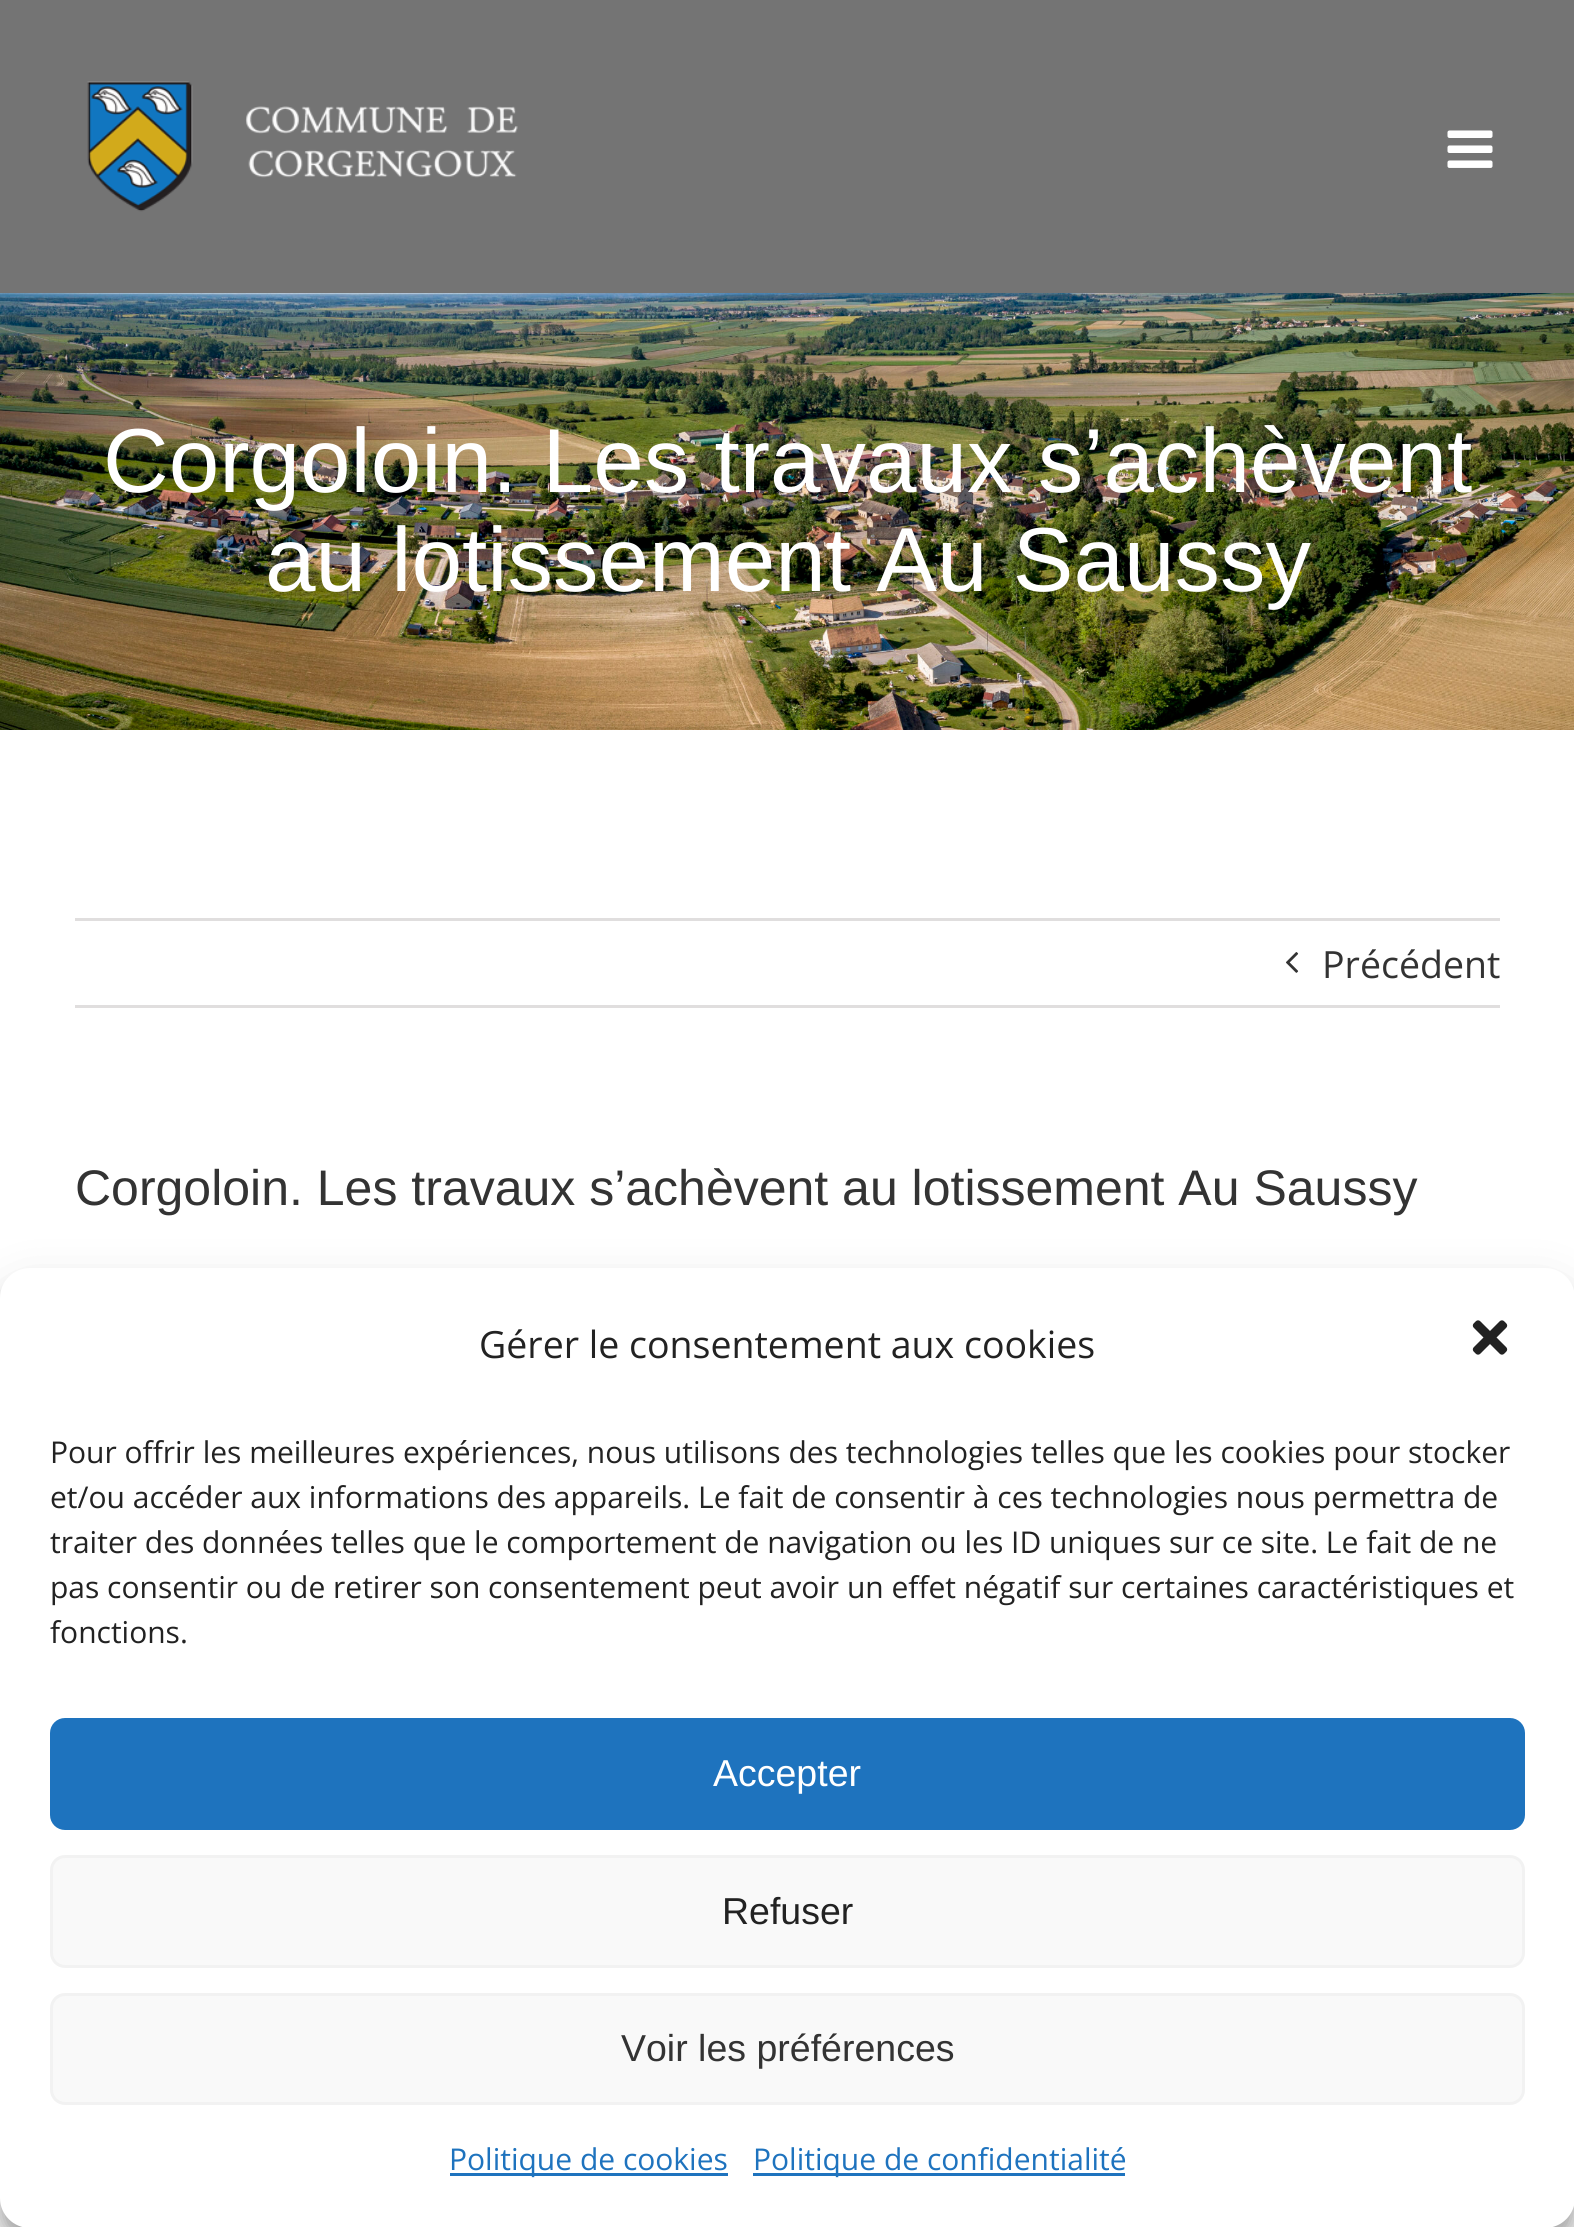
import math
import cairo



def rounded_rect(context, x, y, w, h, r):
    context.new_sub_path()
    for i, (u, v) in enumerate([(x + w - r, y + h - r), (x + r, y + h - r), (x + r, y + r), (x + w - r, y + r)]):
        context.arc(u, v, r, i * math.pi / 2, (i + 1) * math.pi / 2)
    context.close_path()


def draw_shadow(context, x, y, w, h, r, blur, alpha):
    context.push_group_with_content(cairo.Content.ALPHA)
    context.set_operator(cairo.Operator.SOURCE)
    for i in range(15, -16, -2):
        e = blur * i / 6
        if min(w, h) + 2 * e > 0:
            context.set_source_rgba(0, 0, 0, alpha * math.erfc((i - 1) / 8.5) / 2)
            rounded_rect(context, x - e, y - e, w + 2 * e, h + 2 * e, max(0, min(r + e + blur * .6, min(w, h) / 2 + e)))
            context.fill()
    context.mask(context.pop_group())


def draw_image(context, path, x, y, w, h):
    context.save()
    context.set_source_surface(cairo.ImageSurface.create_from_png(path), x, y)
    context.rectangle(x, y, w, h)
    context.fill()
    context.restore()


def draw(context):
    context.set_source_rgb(1, 1, 1)
    context.paint()
    context.set_source_rgb(116 / 255, 116 / 255, 116 / 255)
    context.rectangle(0, 0, 1574, 293)
    context.fill()
    draw_image(context, "images/1.png", 87, 81, 431, 131)
    draw_image(context, "images/2.png", 1447, 130, 46, 38)
    draw_image(context, "images/3.png", 0, 293, 1574, 437)
    context.set_source_rgb(224 / 255, 222 / 255, 222 / 255)
    context.rectangle(75, 918, 1425, 3)
    context.fill()
    context.rectangle(75, 1005, 1425, 3)
    context.fill()
    draw_image(context, "images/4.png", 1286, 952, 13, 21)
    context.set_source_rgb(0, 0, 0)
    draw_shadow(context, 0, 1283, 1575, 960, 30, 7.5, 0.23)
    draw_shadow(context, 0, 1293, 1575, 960, 30, 25, 0.19)
    context.set_source_rgb(1, 1, 1)
    rounded_rect(context, 0, 1268, 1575, 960, 30)
    context.fill()
    draw_image(context, "images/5.png", 1472, 1320, 36, 35)
    context.set_source_rgb(30 / 255, 115 / 255, 190 / 255)
    rounded_rect(context, 51.5, 1719.5, 1472, 109, 13.5)
    context.fill_preserve()
    context.set_line_width(3)
    context.stroke()
    context.set_source_rgb(249 / 255, 249 / 255, 249 / 255)
    rounded_rect(context, 51.5, 1856.5, 1472, 110, 13.5)
    context.fill_preserve()
    context.set_source_rgb(242 / 255, 242 / 255, 242 / 255)
    context.stroke()
    context.set_source_rgb(249 / 255, 249 / 255, 249 / 255)
    rounded_rect(context, 51.5, 1994.5, 1472, 109, 13.5)
    context.fill_preserve()
    context.set_source_rgb(242 / 255, 242 / 255, 242 / 255)
    context.stroke()
    context.set_source_rgb(30 / 255, 115 / 255, 190 / 255)
    context.rectangle(450, 2173, 278, 3)
    context.fill()
    context.rectangle(753, 2173, 372, 3)
    context.fill()
    context.select_font_face("Liberation Sans")
    context.set_font_size(90.9)
    context.set_source_rgb(1, 1, 1)
    context.move_to(103, 492)
    context.show_text("Corgoloin. Les travaux s’achèvent")
    context.move_to(265, 591)
    context.show_text("au lotissement Au Saussy")
    context.select_font_face("Open Sans")
    context.set_font_size(37.5)
    context.set_source_rgb(51 / 255, 51 / 255, 51 / 255)
    context.move_to(1322, 978)
    context.show_text("Précédent")
    context.select_font_face("Liberation Sans")
    context.set_font_size(50)
    context.move_to(75, 1205)
    context.show_text("Corgoloin. Les travaux s’achèvent au lotissement Au Saussy")
    context.select_font_face("Open Sans")
    context.set_font_size(37.5)
    context.set_source_rgb(34 / 255, 34 / 255, 34 / 255)
    context.move_to(479, 1358)
    context.show_text("Gérer le consentement aux cookies")
    context.set_font_size(30)
    context.move_to(50, 1463)
    context.show_text("Pour offrir les meilleures expériences, nous utilisons des technologies telles que les cookies pour stocker")
    context.move_to(50, 1508)
    context.show_text("et/ou accéder aux informations des appareils. Le fait de consentir à ces technologies nous permettra de")
    context.move_to(50, 1553)
    context.show_text("traiter des données telles que le comportement de navigation ou les ID uniques sur ce site. Le fait de ne")
    context.move_to(50, 1598)
    context.show_text("pas consentir ou de retirer son consentement peut avoir un effet négatif sur certaines caractéristiques et")
    context.move_to(50, 1643)
    context.show_text("fonctions.")
    context.select_font_face("Liberation Sans")
    context.set_font_size(37.5)
    context.set_source_rgb(1, 1, 1)
    context.move_to(713, 1786)
    context.show_text("Accepter")
    context.set_source_rgb(34 / 255, 34 / 255, 34 / 255)
    context.move_to(722, 1924)
    context.show_text("Refuser")
    context.set_source_rgb(51 / 255, 51 / 255, 51 / 255)
    context.move_to(621, 2061)
    context.show_text("Voir les préférences")
    context.select_font_face("Open Sans")
    context.set_font_size(30)
    context.set_source_rgb(30 / 255, 115 / 255, 190 / 255)
    context.move_to(449, 2170)
    context.show_text("Politique de cookies")
    context.move_to(753, 2170)
    context.show_text("Politique de confidentialité")


surface = cairo.ImageSurface(cairo.Format.RGB24, 1574, 2227)
context = cairo.Context(surface)
options = cairo.FontOptions()
options.set_hint_metrics(cairo.HintMetrics.OFF)
options.set_hint_style(cairo.HintStyle.NONE)
context.set_font_options(options)
context.set_miter_limit(4)
draw(context)
surface.write_to_png("out.png")
